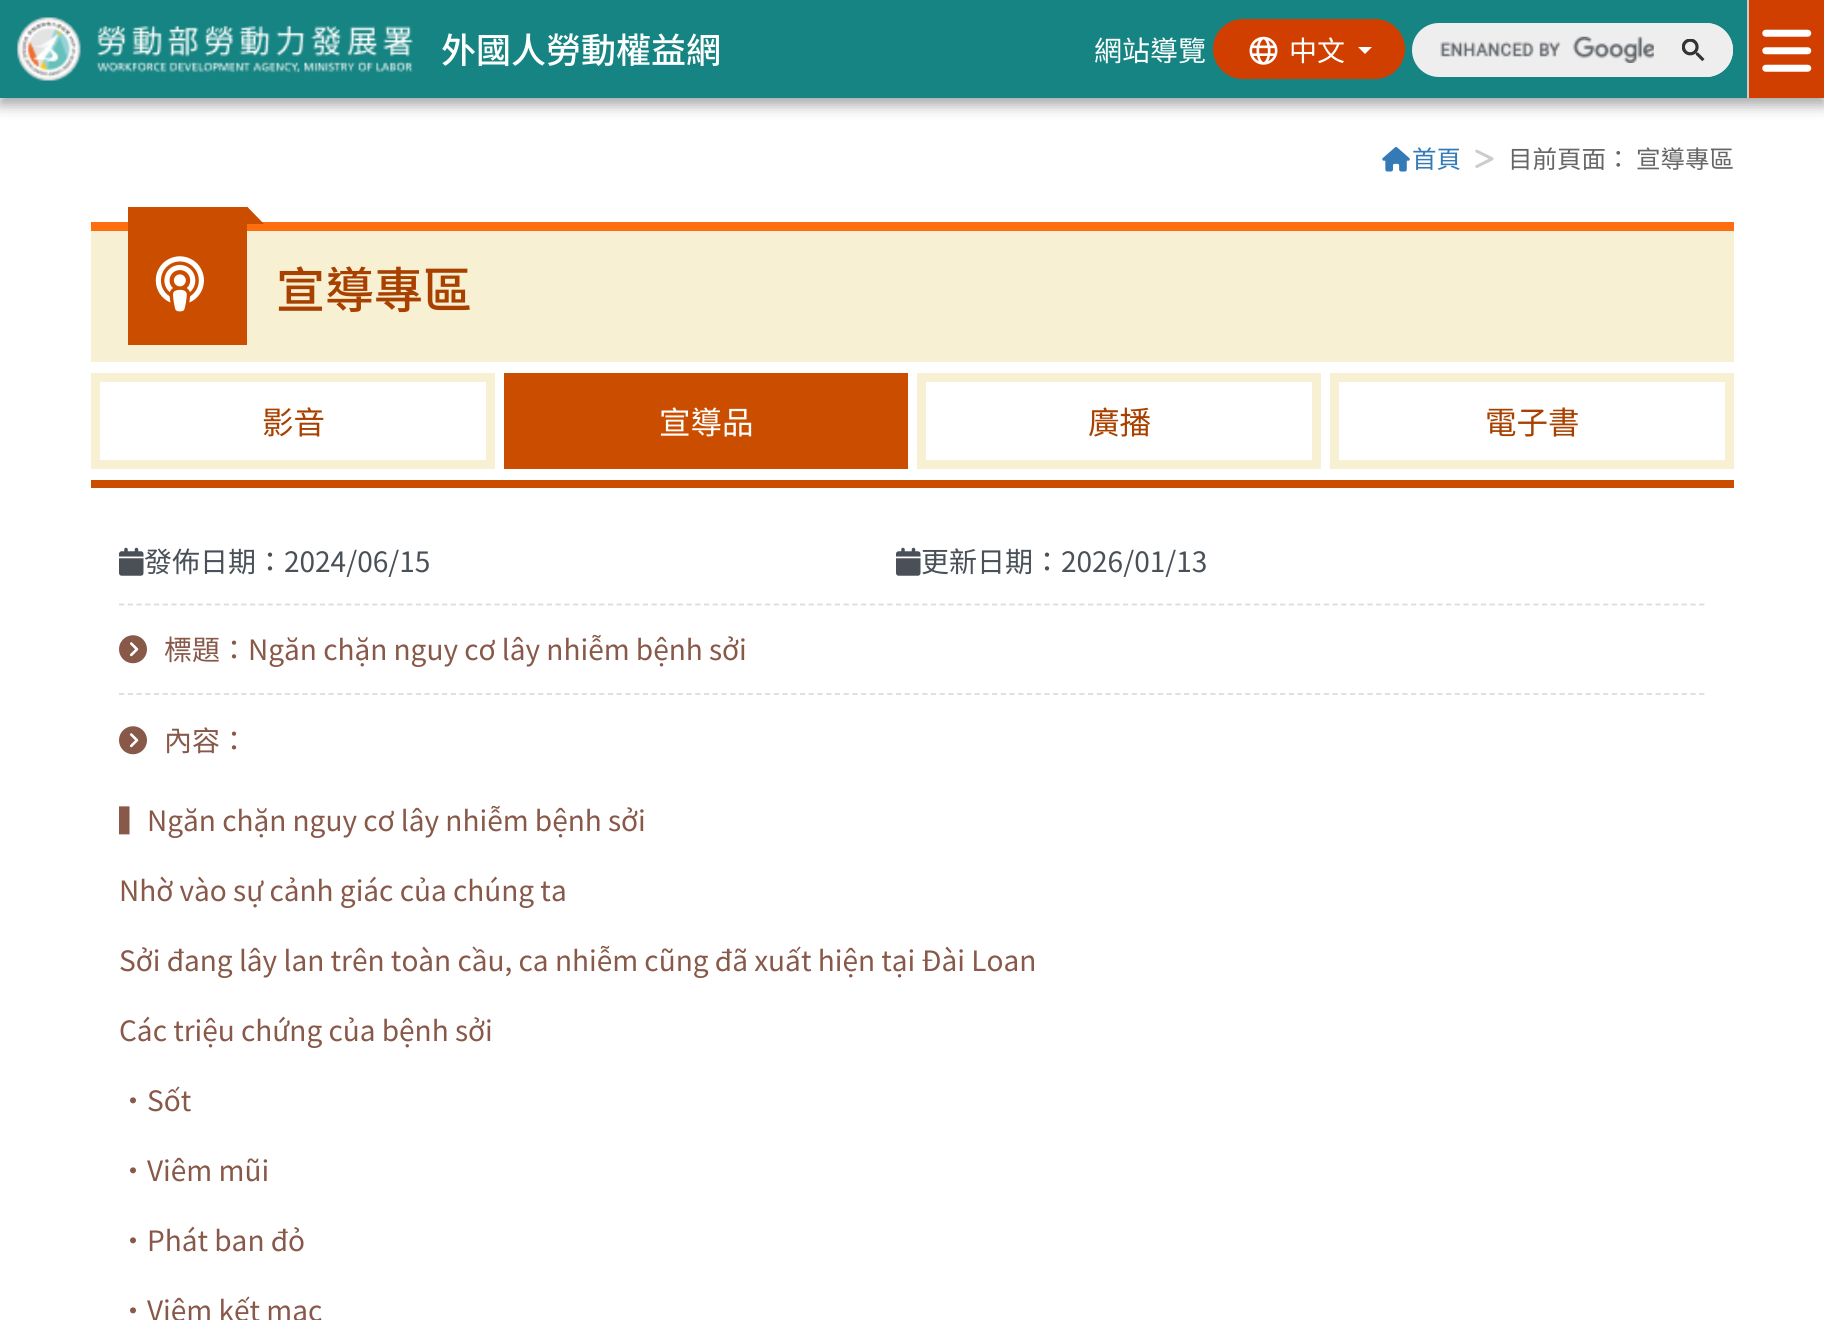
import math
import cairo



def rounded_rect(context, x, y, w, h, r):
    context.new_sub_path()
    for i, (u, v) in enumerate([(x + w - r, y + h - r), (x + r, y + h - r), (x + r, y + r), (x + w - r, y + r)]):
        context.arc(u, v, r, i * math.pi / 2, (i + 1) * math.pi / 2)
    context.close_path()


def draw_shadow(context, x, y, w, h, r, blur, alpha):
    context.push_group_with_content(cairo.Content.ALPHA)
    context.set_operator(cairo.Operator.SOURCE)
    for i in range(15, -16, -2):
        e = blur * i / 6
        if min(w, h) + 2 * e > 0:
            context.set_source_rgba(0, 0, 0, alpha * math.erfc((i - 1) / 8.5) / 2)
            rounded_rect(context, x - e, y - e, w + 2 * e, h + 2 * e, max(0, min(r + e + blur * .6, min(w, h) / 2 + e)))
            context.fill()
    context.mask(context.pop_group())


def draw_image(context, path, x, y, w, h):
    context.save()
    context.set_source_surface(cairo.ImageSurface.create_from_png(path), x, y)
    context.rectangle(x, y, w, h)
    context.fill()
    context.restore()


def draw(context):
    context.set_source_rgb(1, 1, 1)
    context.paint()
    context.set_source_rgb(0, 0, 0)
    draw_shadow(context, 0, 7, 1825, 98, 0, 7, 0.35)
    context.set_source_rgb(21 / 255, 132 / 255, 130 / 255)
    context.rectangle(0, 0, 1747, 98)
    context.fill()
    draw_image(context, "images/1.png", 16, 17, 397, 64)
    context.set_source_rgb(209 / 255, 63 / 255, 0)
    rounded_rect(context, 1213, 19, 192, 60, 30)
    context.fill()
    draw_image(context, "images/2.png", 1249, 36, 29, 29)
    context.set_source_rgb(1, 1, 1)
    context.new_path()
    context.move_to(1358, 47)
    context.line_to(1372, 47)
    context.line_to(1365, 54)
    context.close_path()
    context.fill()
    context.set_source_rgb(238 / 255, 238 / 255, 238 / 255)
    rounded_rect(context, 1412, 23, 321, 54, 27)
    context.fill()
    draw_image(context, "images/3.png", 1440, 36, 214, 27)
    rounded_rect(context, 1655, 24, 77, 52, 26)
    context.fill_preserve()
    context.stroke()
    draw_image(context, "images/4.png", 1682, 39, 23, 22)
    context.set_source_rgb(209 / 255, 63 / 255, 0)
    context.rectangle(1749, 0, 75, 98)
    context.fill()
    context.set_source_rgb(204 / 255, 204 / 255, 204 / 255)
    context.rectangle(1747, 0, 2, 98)
    context.fill()
    draw_image(context, "images/5.png", 1762, 29, 50, 43)
    draw_image(context, "images/6.png", 1382, 147, 28, 25)
    draw_image(context, "images/7.png", 1475, 149, 19, 19)
    context.set_source_rgb(247 / 255, 240 / 255, 210 / 255)
    context.rectangle(91, 231, 1643, 131)
    context.fill()
    context.set_source_rgb(254 / 255, 110 / 255, 14 / 255)
    context.rectangle(91, 222, 1643, 9)
    context.fill()
    context.set_source_rgb(203 / 255, 78 / 255, 0)
    context.rectangle(128, 207, 119, 138)
    context.fill()
    context.new_path()
    context.move_to(264, 224)
    context.line_to(229, 224)
    context.line_to(247, 206.5)
    context.close_path()
    context.fill()
    draw_image(context, "images/8.png", 155, 256, 49, 56)
    context.rectangle(95.5, 377.5, 395, 87)
    context.set_source_rgb(247 / 255, 240 / 255, 210 / 255)
    context.set_line_width(9)
    context.stroke()
    context.set_source_rgb(203 / 255, 78 / 255, 0)
    context.rectangle(504, 373, 404, 96)
    context.fill()
    context.rectangle(921.5, 377.5, 395, 87)
    context.set_source_rgb(247 / 255, 240 / 255, 210 / 255)
    context.stroke()
    context.rectangle(1334.5, 377.5, 395, 87)
    context.stroke()
    context.set_source_rgb(203 / 255, 78 / 255, 0)
    context.rectangle(91, 480, 1643, 8)
    context.fill()
    context.new_path()
    context.move_to(119, 604.5)
    context.line_to(1706, 604.5)
    context.set_source_rgb(221 / 255, 221 / 255, 221 / 255)
    context.set_line_width(1.8)
    context.set_dash([5.25, 3.48])
    context.stroke()
    draw_image(context, "images/9.png", 119, 547, 25, 29)
    draw_image(context, "images/9.png", 896, 547, 25, 29)
    context.new_path()
    context.move_to(119, 694)
    context.line_to(1706, 694)
    context.stroke()
    draw_image(context, "images/10.png", 119, 635, 28, 29)
    draw_image(context, "images/10.png", 119, 726, 28, 29)
    context.select_font_face("Noto Sans TC Medium")
    context.set_font_size(35)
    context.set_source_rgb(1, 1, 1)
    context.move_to(441, 63)
    context.show_text("外國人勞動權益網")
    context.select_font_face("Noto Sans TC")
    context.set_font_size(28)
    context.move_to(1094, 61)
    context.show_text("網站導覽")
    context.move_to(1289, 61)
    context.show_text("中文")
    context.set_font_size(24.5)
    context.set_source_rgb(51 / 255, 122 / 255, 183 / 255)
    context.move_to(1412, 168)
    context.show_text("首頁")
    context.set_source_rgb(102 / 255, 102 / 255, 102 / 255)
    context.move_to(1508, 168)
    context.show_text("目前頁面： 宣導專區")
    context.select_font_face("Noto Sans TC Medium")
    context.set_font_size(49)
    context.set_source_rgb(168 / 255, 65 / 255, 0)
    context.move_to(276, 308)
    context.show_text("宣導專區")
    context.select_font_face("Noto Sans TC")
    context.set_font_size(31.5)
    context.move_to(262, 434)
    context.show_text("影音")
    context.set_source_rgb(1, 1, 1)
    context.move_to(659, 434)
    context.show_text("宣導品")
    context.set_source_rgb(168 / 255, 65 / 255, 0)
    context.move_to(1088, 434)
    context.show_text("廣播")
    context.move_to(1485, 434)
    context.show_text("電子書")
    context.set_font_size(28)
    context.set_source_rgb(73 / 255, 80 / 255, 87 / 255)
    context.move_to(144, 572)
    context.show_text("發佈日期：2024/06/15")
    context.move_to(921, 572)
    context.show_text("更新日期：2026/01/13")
    context.set_source_rgb(136 / 255, 88 / 255, 73 / 255)
    context.move_to(164, 660)
    context.show_text("標題：Ngăn chặn nguy cơ lây nhiễm bệnh sởi")
    context.move_to(164, 751)
    context.show_text("內容：")
    context.move_to(119, 831)
    context.show_text("▍Ngăn chặn nguy cơ lây nhiễm bệnh sởi")
    context.move_to(119, 901)
    context.show_text("Nhờ vào sự cảnh giác của chúng ta")
    context.move_to(119, 971)
    context.show_text("Sởi đang lây lan trên toàn cầu, ca nhiễm cũng đã xuất hiện tại Đài Loan")
    context.move_to(119, 1041)
    context.show_text("Các triệu chứng của bệnh sởi")
    context.move_to(119, 1111)
    context.show_text("•Sốt")
    context.move_to(119, 1181)
    context.show_text("•Viêm mũi")
    context.move_to(119, 1251)
    context.show_text("•Phát ban đỏ")
    context.move_to(119, 1321)
    context.show_text("•Viêm kết mạc")


surface = cairo.ImageSurface(cairo.Format.RGB24, 1824, 1320)
context = cairo.Context(surface)
options = cairo.FontOptions()
options.set_hint_metrics(cairo.HintMetrics.OFF)
options.set_hint_style(cairo.HintStyle.NONE)
context.set_font_options(options)
context.set_miter_limit(4)
draw(context)
surface.write_to_png("out.png")
